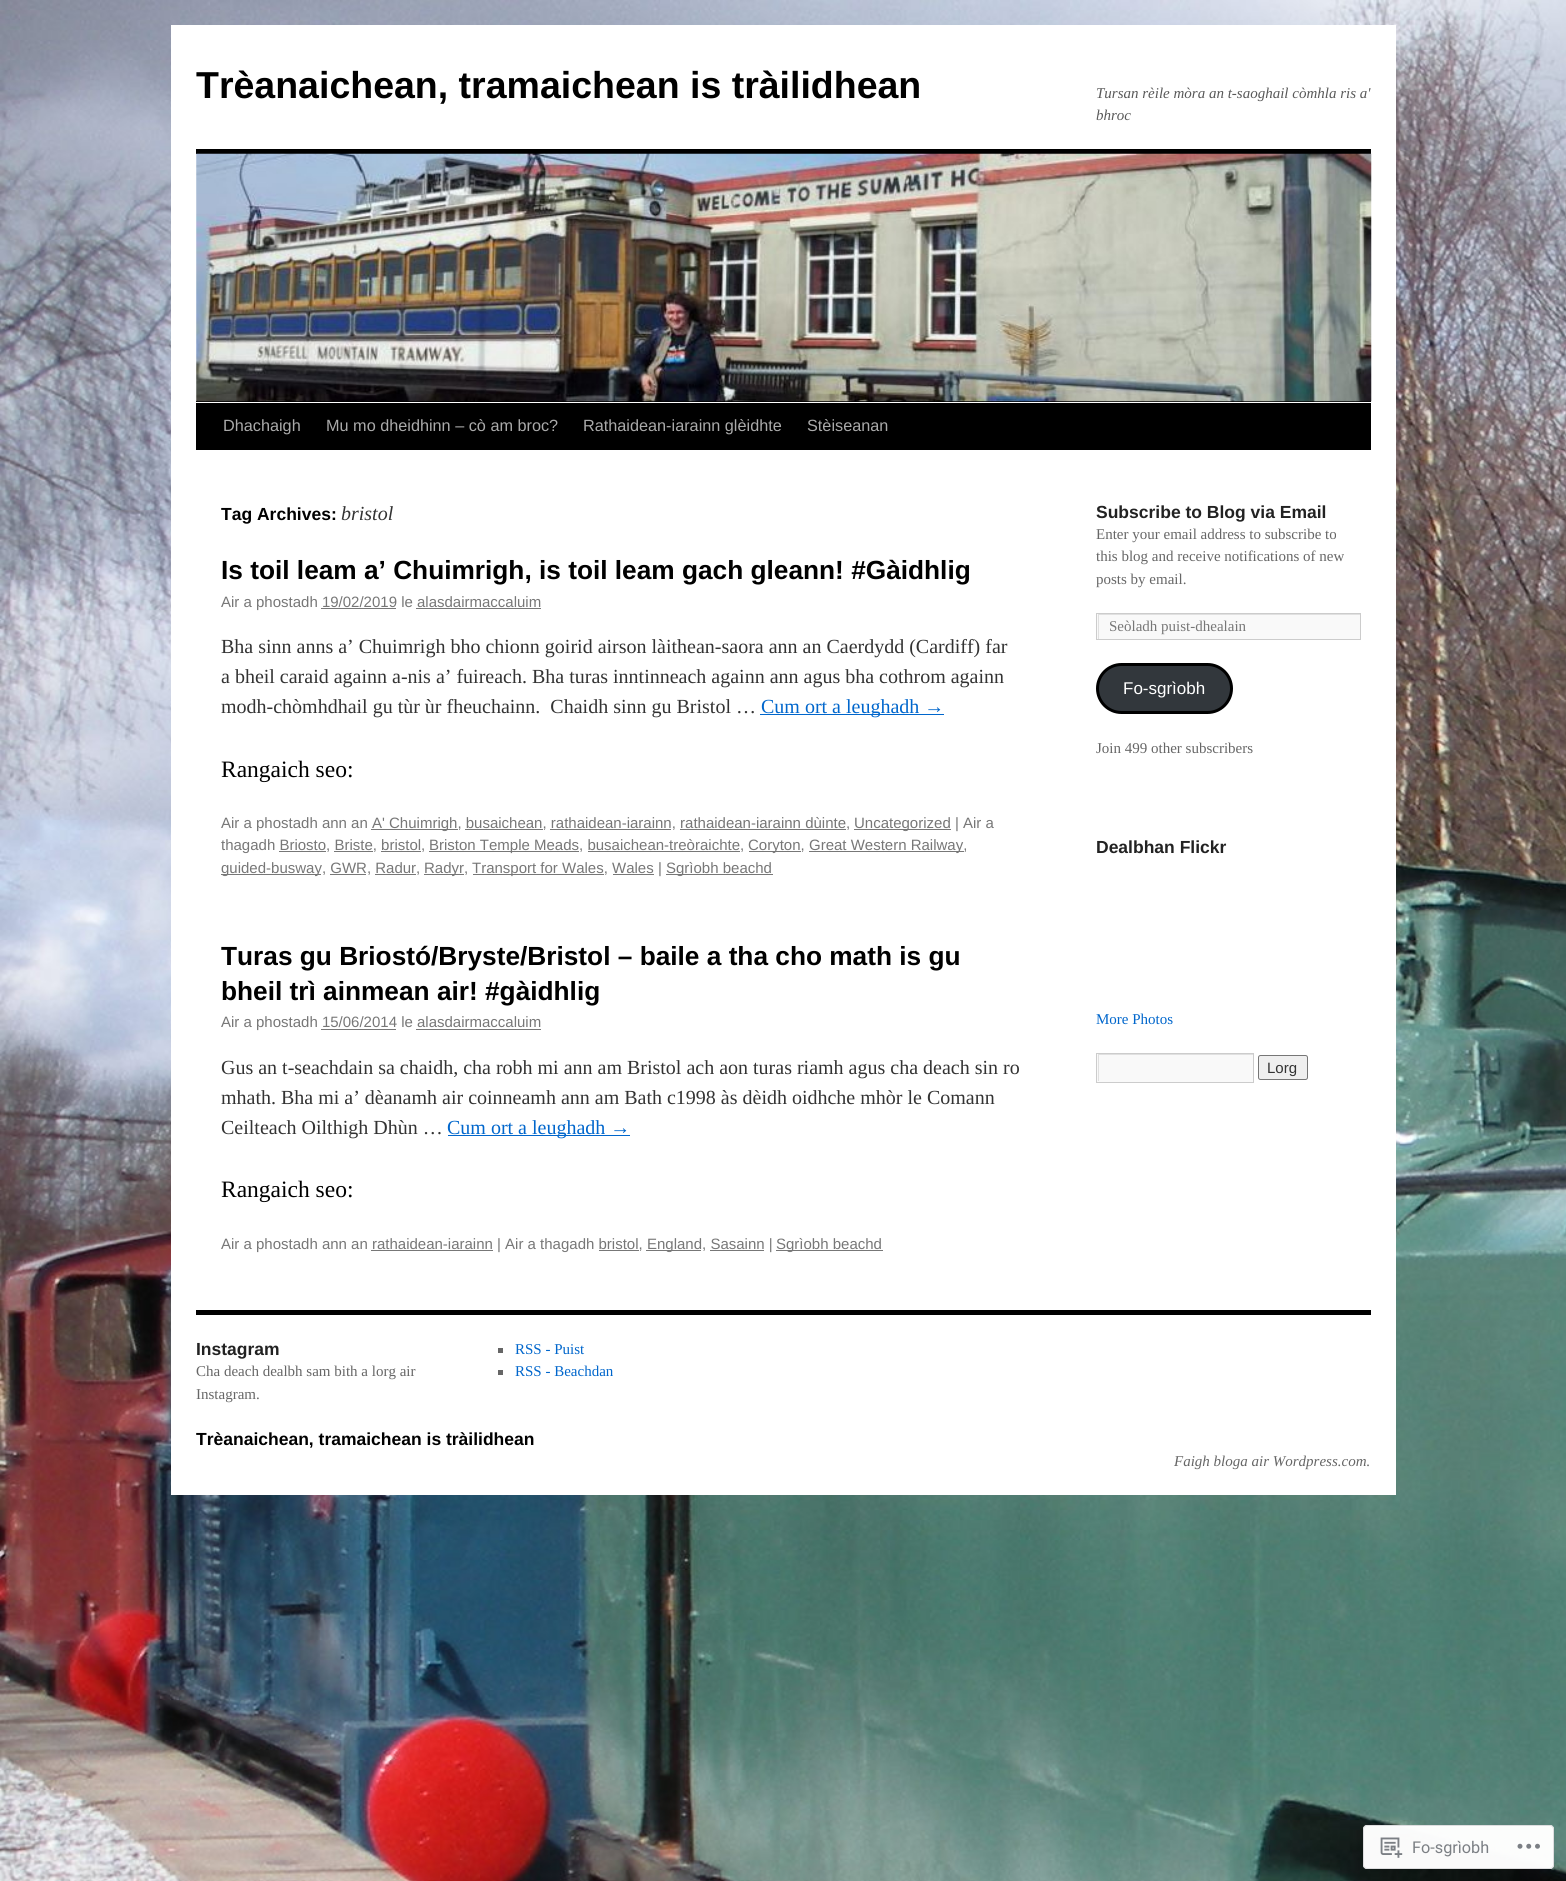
import math
import cairo



def rounded_rect(context, x, y, w, h, r):
    context.new_sub_path()
    for i, (u, v) in enumerate([(x + w - r, y + h - r), (x + r, y + h - r), (x + r, y + r), (x + w - r, y + r)]):
        context.arc(u, v, r, i * math.pi / 2, (i + 1) * math.pi / 2)
    context.close_path()


def draw_image(context, path, x, y, w, h):
    context.save()
    context.set_source_surface(cairo.ImageSurface.create_from_png(path), x, y)
    context.rectangle(x, y, w, h)
    context.fill()
    context.restore()


def draw(context):
    context.set_source_rgb(1, 1, 1)
    context.paint()
    draw_image(context, "images/1.png", 0, 0, 1566, 1881)
    context.set_source_rgb(1, 1, 1)
    context.rectangle(171, 25, 1225, 1470)
    context.fill()
    context.set_source_rgb(0, 0, 0)
    context.rectangle(196, 149, 1175, 5)
    context.fill()
    context.rectangle(196, 401, 1175, 1)
    context.fill()
    draw_image(context, "images/2.png", 196, 153, 1176, 249)
    context.rectangle(196, 403, 1175, 47)
    context.fill()
    context.set_source_rgb(119 / 255, 119 / 255, 119 / 255)
    context.rectangle(321, 608, 75, 1)
    context.fill()
    context.rectangle(416, 608, 125, 1)
    context.fill()
    context.set_source_rgb(0, 102 / 255, 204 / 255)
    context.rectangle(760, 714, 184, 1)
    context.fill()
    context.set_source_rgb(119 / 255, 119 / 255, 119 / 255)
    context.rectangle(371, 829, 87, 1)
    context.fill()
    context.rectangle(465, 829, 78, 1)
    context.fill()
    context.rectangle(550, 829, 121, 1)
    context.fill()
    context.rectangle(680, 829, 166, 1)
    context.fill()
    context.rectangle(854, 829, 97, 1)
    context.fill()
    context.rectangle(279, 851, 47, 1)
    context.fill()
    context.rectangle(334, 851, 39, 1)
    context.fill()
    context.rectangle(381, 851, 40, 1)
    context.fill()
    context.rectangle(429, 851, 150, 1)
    context.fill()
    context.rectangle(588, 851, 152, 1)
    context.fill()
    context.rectangle(749, 851, 52, 1)
    context.fill()
    context.rectangle(809, 851, 155, 1)
    context.fill()
    context.rectangle(221, 874, 100, 1)
    context.fill()
    context.rectangle(330, 874, 36, 1)
    context.fill()
    context.rectangle(375, 874, 41, 1)
    context.fill()
    context.rectangle(424, 874, 40, 1)
    context.fill()
    context.rectangle(473, 874, 131, 1)
    context.fill()
    context.rectangle(613, 874, 41, 1)
    context.fill()
    context.rectangle(666, 874, 107, 1)
    context.fill()
    context.rectangle(321, 1029, 75, 1)
    context.fill()
    context.rectangle(416, 1029, 125, 1)
    context.fill()
    context.set_source_rgb(0, 102 / 255, 204 / 255)
    context.rectangle(448, 1135, 182, 1)
    context.fill()
    context.set_source_rgb(119 / 255, 119 / 255, 119 / 255)
    context.rectangle(371, 1250, 122, 1)
    context.fill()
    context.rectangle(599, 1250, 40, 1)
    context.fill()
    context.rectangle(646, 1250, 55, 1)
    context.fill()
    context.rectangle(710, 1250, 54, 1)
    context.fill()
    context.rectangle(776, 1250, 107, 1)
    context.fill()
    context.set_source_rgb(249 / 255, 249 / 255, 249 / 255)
    context.rectangle(1097, 614, 263, 25)
    context.fill()
    context.save()
    context.rectangle(1098, 614, 262, 25)
    context.clip()
    context.set_source_rgb(224 / 255, 224 / 255, 224 / 255)
    context.set_fill_rule(cairo.FillRule.EVEN_ODD)
    context.new_path()
    context.move_to(974, 490)
    context.line_to(1484, 490)
    context.line_to(1484, 762)
    context.line_to(974, 762)
    context.close_path()
    context.move_to(1099, 615)
    context.line_to(1361, 615)
    context.line_to(1361, 640)
    context.line_to(1099, 640)
    context.close_path()
    context.fill()
    context.restore()
    context.rectangle(1096.5, 613.5, 264, 26)
    context.set_source_rgb(204 / 255, 204 / 255, 204 / 255)
    context.set_line_width(1)
    context.stroke()
    context.set_source_rgb(50 / 255, 55 / 255, 60 / 255)
    rounded_rect(context, 1097.5, 664.5, 134, 48, 24)
    context.fill_preserve()
    context.set_source_rgb(0, 0, 0)
    context.set_line_width(3)
    context.stroke()
    context.set_source_rgb(249 / 255, 249 / 255, 249 / 255)
    context.rectangle(1097, 1054, 156, 28)
    context.fill()
    context.save()
    context.rectangle(1098, 1054, 155, 27)
    context.clip()
    context.set_source_rgb(224 / 255, 224 / 255, 224 / 255)
    context.set_fill_rule(cairo.FillRule.EVEN_ODD)
    context.new_path()
    context.move_to(974, 930)
    context.line_to(1376, 930)
    context.line_to(1376, 1205)
    context.line_to(974, 1205)
    context.close_path()
    context.move_to(1099, 1055)
    context.line_to(1254, 1055)
    context.line_to(1254, 1082)
    context.line_to(1099, 1082)
    context.close_path()
    context.fill()
    context.restore()
    context.rectangle(1096.5, 1053.5, 157, 29)
    context.set_source_rgb(204 / 255, 204 / 255, 204 / 255)
    context.set_line_width(1)
    context.stroke()
    context.set_source_rgb(239 / 255, 239 / 255, 239 / 255)
    rounded_rect(context, 1258.5, 1055.5, 49, 24, 2)
    context.fill_preserve()
    context.set_source_rgb(118 / 255, 118 / 255, 118 / 255)
    context.stroke()
    context.set_source_rgb(0, 0, 0)
    context.rectangle(196, 1310, 1175, 5)
    context.fill()
    context.set_source_rgb(102 / 255, 102 / 255, 102 / 255)
    context.rectangle(498, 1348, 5, 5)
    context.fill()
    context.rectangle(498, 1370, 5, 5)
    context.fill()
    context.set_source_rgba(1, 1, 1, 0.98)
    rounded_rect(context, 1363, 1825, 191, 44, 4)
    context.fill()
    rounded_rect(context, 1363.5, 1825.5, 190, 43, 3.5)
    context.set_source_rgba(220 / 255, 220 / 255, 222 / 255, 0.98)
    context.stroke()
    draw_image(context, "images/3.png", 1380, 1837, 23, 21)
    draw_image(context, "images/4.png", 1517, 1843, 23, 6)
    context.select_font_face("Liberation Sans", cairo.FontSlant.NORMAL, cairo.FontWeight.BOLD)
    context.set_font_size(37.5)
    context.set_source_rgb(0, 0, 0)
    context.move_to(196, 98)
    context.show_text("Trèanaichean, tramaichean is tràilidhean")
    context.select_font_face("Liberation Serif", cairo.FontSlant.ITALIC)
    context.set_font_size(15)
    context.set_source_rgb(89 / 255, 89 / 255, 89 / 255)
    context.move_to(1096, 98)
    context.show_text("Tursan rèile mòra an t-saoghail còmhla ris a'")
    context.move_to(1096, 120)
    context.show_text("bhroc")
    context.select_font_face("Liberation Sans")
    context.set_font_size(16.25)
    context.set_source_rgb(170 / 255, 170 / 255, 170 / 255)
    context.move_to(223, 431)
    context.show_text("Dhachaigh")
    context.move_to(326, 431)
    context.show_text("Mu mo dheidhinn – cò am broc?")
    context.move_to(583, 431)
    context.show_text("Rathaidean-iarainn glèidhte")
    context.move_to(807, 431)
    context.show_text("Stèiseanan")
    context.select_font_face("Liberation Sans", cairo.FontSlant.NORMAL, cairo.FontWeight.BOLD)
    context.set_font_size(17.5)
    context.set_source_rgb(0, 0, 0)
    context.move_to(221, 520)
    context.show_text("Tag Archives:")
    context.select_font_face("Liberation Serif", cairo.FontSlant.ITALIC)
    context.set_font_size(20)
    context.set_source_rgb(51 / 255, 51 / 255, 51 / 255)
    context.move_to(341, 520)
    context.show_text("bristol")
    context.select_font_face("Liberation Sans", cairo.FontSlant.NORMAL, cairo.FontWeight.BOLD)
    context.set_font_size(26.25)
    context.set_source_rgb(0, 0, 0)
    context.move_to(221, 579)
    context.show_text("Is toil leam a’ Chuimrigh, is toil leam gach gleann! #Gàidhlig")
    context.select_font_face("Liberation Sans")
    context.set_font_size(15)
    context.set_source_rgb(119 / 255, 119 / 255, 119 / 255)
    context.move_to(221, 607)
    context.show_text("Air a phostadh 19/02/2019 le alasdairmaccaluim")
    context.select_font_face("Liberation Serif")
    context.set_font_size(20)
    context.set_source_rgb(51 / 255, 51 / 255, 51 / 255)
    context.move_to(221, 653)
    context.show_text("Bha sinn anns a’ Chuimrigh bho chionn goirid airson làithean-saora ann an Caerdydd (Cardiff) far")
    context.move_to(221, 683)
    context.show_text("a bheil caraid againn a-nis a’ fuireach. Bha turas inntinneach againn ann agus bha cothrom againn")
    context.move_to(221, 713)
    context.show_text("modh-chòmhdhail gu tùr ùr fheuchainn.  Chaidh sinn gu Bristol …")
    context.set_source_rgb(0, 102 / 255, 204 / 255)
    context.move_to(761, 713)
    context.show_text("Cum ort a leughadh →")
    context.set_font_size(23.5)
    context.set_source_rgb(0, 0, 0)
    context.move_to(221, 777)
    context.show_text("Rangaich seo:")
    context.select_font_face("Liberation Sans")
    context.set_font_size(15)
    context.set_source_rgb(119 / 255, 119 / 255, 119 / 255)
    context.move_to(221, 828)
    context.show_text("Air a phostadh ann an")
    context.move_to(372, 828)
    context.show_text("A' Chuimrigh, busaichean, rathaidean-iarainn, rathaidean-iarainn dùinte,")
    context.move_to(854, 828)
    context.show_text("Uncategorized | Air a")
    context.move_to(221, 850)
    context.show_text("thagadh Briosto, Briste, bristol,")
    context.move_to(429, 850)
    context.show_text("Briston Temple Meads, busaichean-treòraichte,")
    context.move_to(748, 850)
    context.show_text("Coryton,")
    context.move_to(809, 850)
    context.show_text("Great Western Railway,")
    context.move_to(221, 873)
    context.show_text("guided-busway, GWR, Radur,")
    context.move_to(424, 873)
    context.show_text("Radyr,")
    context.move_to(472, 873)
    context.show_text("Transport for Wales, Wales |")
    context.move_to(666, 873)
    context.show_text("Sgrìobh beachd")
    context.select_font_face("Liberation Sans", cairo.FontSlant.NORMAL, cairo.FontWeight.BOLD)
    context.set_font_size(26.25)
    context.set_source_rgb(0, 0, 0)
    context.move_to(221, 965)
    context.show_text("Turas gu Briostó/Bryste/Bristol – baile a tha cho math is gu")
    context.move_to(221, 1000)
    context.show_text("bheil trì ainmean air! #gàidhlig")
    context.select_font_face("Liberation Sans")
    context.set_font_size(15)
    context.set_source_rgb(119 / 255, 119 / 255, 119 / 255)
    context.move_to(221, 1027)
    context.show_text("Air a phostadh 15/06/2014 le alasdairmaccaluim")
    context.select_font_face("Liberation Serif")
    context.set_font_size(20)
    context.set_source_rgb(51 / 255, 51 / 255, 51 / 255)
    context.move_to(221, 1074)
    context.show_text("Gus an t-seachdain sa chaidh, cha robh mi ann am Bristol ach aon turas riamh agus cha deach sin ro")
    context.move_to(221, 1104)
    context.show_text("mhath. Bha mi a’ dèanamh air coinneamh ann am Bath c1998 às dèidh oidhche mhòr le Comann")
    context.move_to(221, 1134)
    context.show_text("Ceilteach Oilthigh Dhùn …")
    context.set_source_rgb(0, 102 / 255, 204 / 255)
    context.move_to(447, 1134)
    context.show_text("Cum ort a leughadh →")
    context.set_font_size(23.5)
    context.set_source_rgb(0, 0, 0)
    context.move_to(221, 1197)
    context.show_text("Rangaich seo:")
    context.select_font_face("Liberation Sans")
    context.set_font_size(15)
    context.set_source_rgb(119 / 255, 119 / 255, 119 / 255)
    context.move_to(221, 1249)
    context.show_text("Air a phostadh ann an rathaidean-iarainn | Air a thagadh bristol,")
    context.move_to(647, 1249)
    context.show_text("England, Sasainn |")
    context.move_to(776, 1249)
    context.show_text("Sgrìobh beachd")
    context.select_font_face("Liberation Sans", cairo.FontSlant.NORMAL, cairo.FontWeight.BOLD)
    context.set_font_size(17.5)
    context.set_source_rgb(34 / 255, 34 / 255, 34 / 255)
    context.move_to(1096, 518)
    context.show_text("Subscribe to Blog via Email")
    context.select_font_face("Liberation Serif")
    context.set_font_size(15)
    context.set_source_rgb(102 / 255, 102 / 255, 102 / 255)
    context.move_to(1096, 539)
    context.show_text("Enter your email address to subscribe to")
    context.move_to(1096, 561)
    context.show_text("this blog and receive notifications of new")
    context.move_to(1096, 584)
    context.show_text("posts by email.")
    context.set_source_rgb(119 / 255, 119 / 255, 119 / 255)
    context.move_to(1109, 631)
    context.show_text("Seòladh puist-dhealain")
    context.select_font_face("Liberation Sans")
    context.set_font_size(17)
    context.set_source_rgb(1, 1, 1)
    context.move_to(1123, 694)
    context.show_text("Fo-sgrìobh")
    context.select_font_face("Liberation Serif")
    context.set_font_size(15)
    context.set_source_rgb(102 / 255, 102 / 255, 102 / 255)
    context.move_to(1096, 753)
    context.show_text("Join 499 other subscribers")
    context.select_font_face("Liberation Sans", cairo.FontSlant.NORMAL, cairo.FontWeight.BOLD)
    context.set_font_size(17.5)
    context.set_source_rgb(34 / 255, 34 / 255, 34 / 255)
    context.move_to(1096, 853)
    context.show_text("Dealbhan Flickr")
    context.select_font_face("Liberation Serif")
    context.set_font_size(15)
    context.set_source_rgb(0, 102 / 255, 204 / 255)
    context.move_to(1096, 1024)
    context.show_text("More Photos")
    context.select_font_face("Liberation Sans")
    context.set_source_rgb(51 / 255, 51 / 255, 51 / 255)
    context.move_to(1267, 1073)
    context.show_text("Lorg")
    context.select_font_face("Liberation Sans", cairo.FontSlant.NORMAL, cairo.FontWeight.BOLD)
    context.set_font_size(17.5)
    context.set_source_rgb(34 / 255, 34 / 255, 34 / 255)
    context.move_to(196, 1355)
    context.show_text("Instagram")
    context.select_font_face("Liberation Serif")
    context.set_font_size(15)
    context.set_source_rgb(102 / 255, 102 / 255, 102 / 255)
    context.move_to(196, 1376)
    context.show_text("Cha deach dealbh sam bith a lorg air")
    context.move_to(196, 1399)
    context.show_text("Instagram.")
    context.set_source_rgb(0, 102 / 255, 204 / 255)
    context.move_to(515, 1354)
    context.show_text("RSS - Puist")
    context.move_to(515, 1376)
    context.show_text("RSS - Beachdan")
    context.select_font_face("Liberation Sans", cairo.FontSlant.NORMAL, cairo.FontWeight.BOLD)
    context.set_font_size(17.5)
    context.set_source_rgb(0, 0, 0)
    context.move_to(196, 1445)
    context.show_text("Trèanaichean, tramaichean is tràilidhean")
    context.select_font_face("Liberation Serif", cairo.FontSlant.ITALIC)
    context.set_font_size(15)
    context.set_source_rgb(102 / 255, 102 / 255, 102 / 255)
    context.move_to(1174, 1466)
    context.show_text("Faigh bloga air Wordpress.com.")
    context.select_font_face("Roboto")
    context.set_font_size(16.25)
    context.set_source_rgb(123 / 255, 127 / 255, 132 / 255)
    context.move_to(1412, 1853)
    context.show_text("Fo-sgrìobh")


surface = cairo.ImageSurface(cairo.Format.RGB24, 1566, 1881)
context = cairo.Context(surface)
options = cairo.FontOptions()
options.set_hint_metrics(cairo.HintMetrics.OFF)
options.set_hint_style(cairo.HintStyle.NONE)
context.set_font_options(options)
context.set_miter_limit(4)
draw(context)
surface.write_to_png("out.png")
